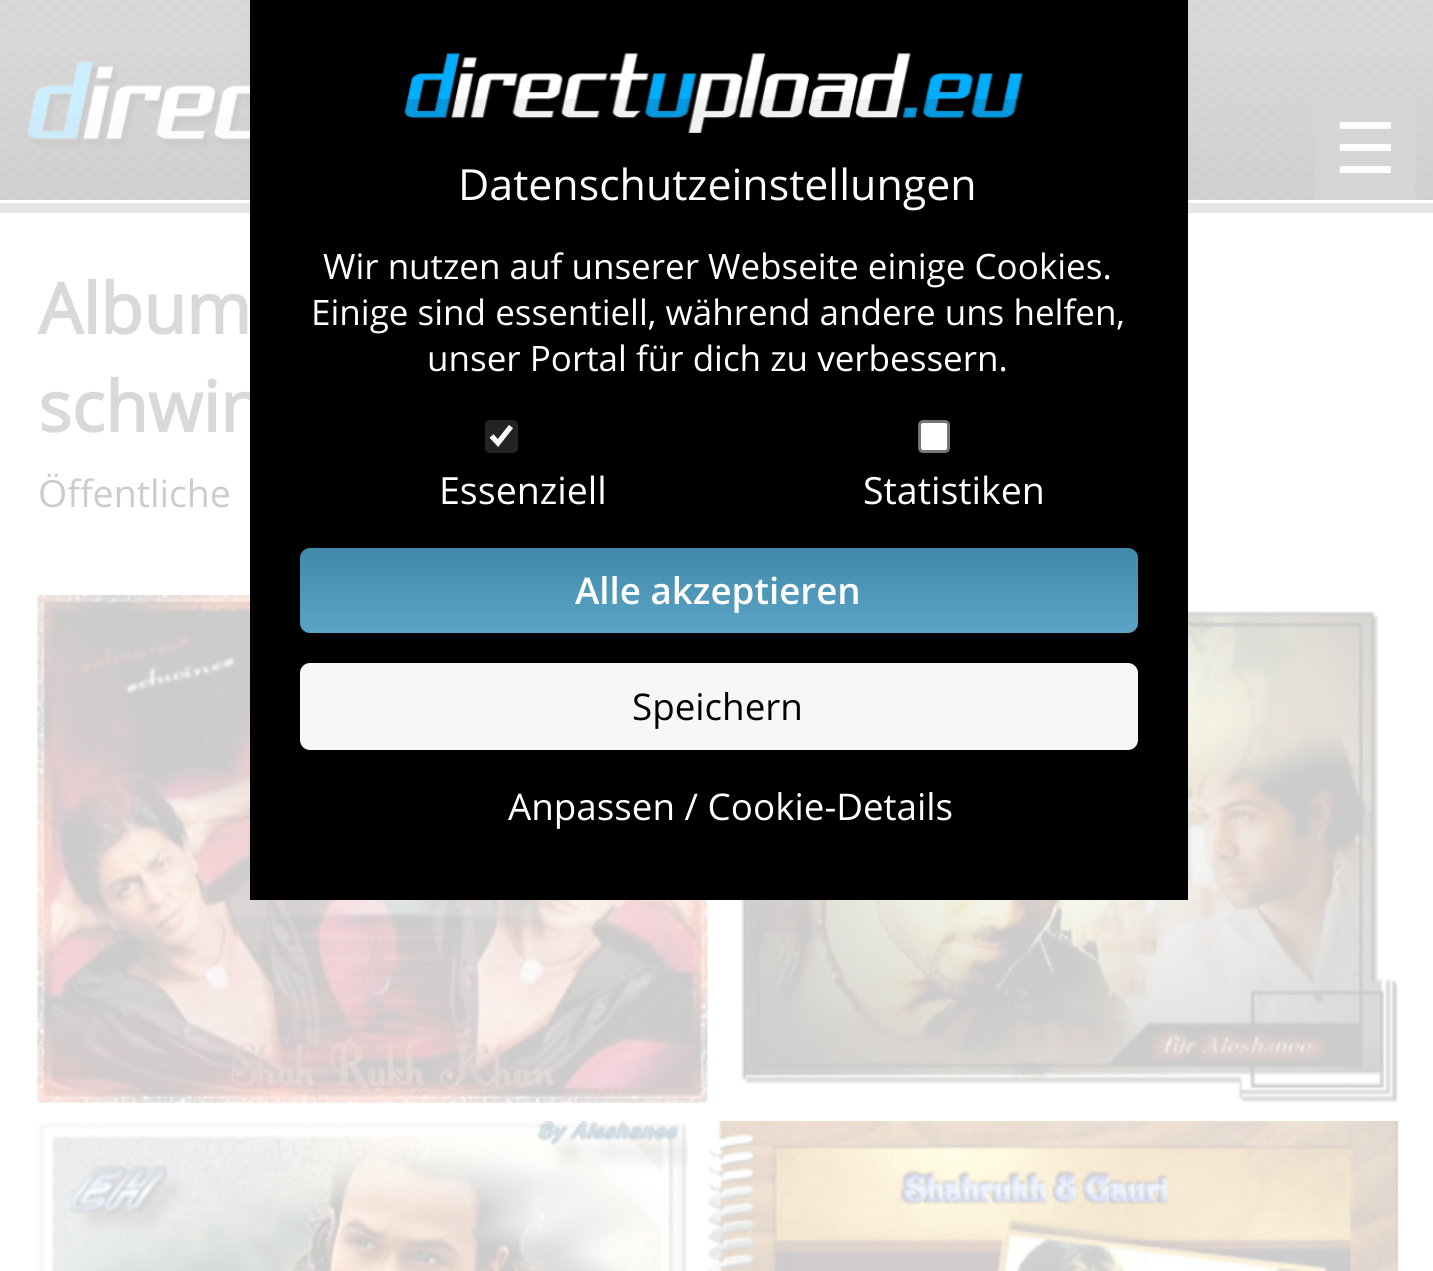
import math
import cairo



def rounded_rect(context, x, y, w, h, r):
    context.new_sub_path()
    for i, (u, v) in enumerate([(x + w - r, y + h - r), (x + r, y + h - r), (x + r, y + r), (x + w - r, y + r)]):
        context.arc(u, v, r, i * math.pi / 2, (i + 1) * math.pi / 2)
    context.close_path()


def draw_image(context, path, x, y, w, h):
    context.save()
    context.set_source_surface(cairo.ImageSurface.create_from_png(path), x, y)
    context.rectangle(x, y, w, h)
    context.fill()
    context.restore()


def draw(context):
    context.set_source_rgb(1, 1, 1)
    context.paint()
    draw_image(context, "images/1.png", 0, 0, 1433, 200)
    draw_image(context, "images/2.png", 27, 61, 223, 87)
    context.set_source_rgb(213 / 255, 213 / 255, 213 / 255)
    context.rectangle(1315, 100, 100, 100)
    context.fill()
    context.set_source_rgb(230 / 255, 230 / 255, 230 / 255)
    context.rectangle(0, 203, 1433, 10)
    context.fill()
    draw_image(context, "images/3.png", 37, 595, 671, 508)
    draw_image(context, "images/4.png", 728, 595, 670, 508)
    draw_image(context, "images/5.png", 38, 1121, 650, 150)
    draw_image(context, "images/6.png", 708, 1121, 690, 150)
    context.select_font_face("DejaVu Sans")
    context.set_font_size(70)
    context.set_source_rgb(1, 1, 1)
    context.move_to(1334, 173)
    context.show_text("☰")
    context.select_font_face("Open Sans", cairo.FontSlant.NORMAL, cairo.FontWeight.BOLD)
    context.set_source_rgb(217 / 255, 217 / 255, 217 / 255)
    context.move_to(38, 334)
    context.show_text("Album")
    context.move_to(38, 432)
    context.show_text("schwin")
    context.select_font_face("Open Sans")
    context.set_font_size(37.5)
    context.set_source_rgb(204 / 255, 204 / 255, 204 / 255)
    context.move_to(38, 507)
    context.show_text("Öffentliche")
    context.set_source_rgb(0, 0, 0)
    context.rectangle(250, 0, 938, 900)
    context.fill()
    draw_image(context, "images/7.png", 404, 53, 619, 80)
    context.set_font_size(42.9)
    context.set_source_rgb(1, 1, 1)
    context.move_to(458, 200)
    context.show_text("Datenschutzeinstellungen")
    context.set_font_size(35)
    context.move_to(323, 279)
    context.show_text("Wir nutzen auf unserer Webseite einige Cookies.")
    context.move_to(311, 325)
    context.show_text("Einige sind essentiell, während andere uns helfen,")
    context.move_to(427, 371)
    context.show_text("unser Portal für dich zu verbessern.")
    context.set_source_rgb(35 / 255, 35 / 255, 35 / 255)
    rounded_rect(context, 485, 420, 33, 33, 5)
    context.fill()
    context.new_path()
    context.move_to(491.5, 436)
    context.line_to(498, 443)
    context.line_to(511, 426.5)
    context.set_source_rgb(1, 1, 1)
    context.set_line_width(5.2)
    context.stroke()
    context.set_font_size(37.5)
    context.move_to(439, 504)
    context.show_text("Essenziell")
    rounded_rect(context, 919.5, 421.5, 29, 30, 3.5)
    context.fill_preserve()
    context.set_source_rgb(118 / 255, 118 / 255, 118 / 255)
    context.set_line_width(3)
    context.stroke()
    context.set_source_rgb(1, 1, 1)
    context.move_to(863, 504)
    context.show_text("Statistiken")
    gradient = cairo.LinearGradient(719, 547, 719, 633)
    gradient.add_color_stop_rgba(0, 65 / 255, 137 / 255, 171 / 255, 1)
    gradient.add_color_stop_rgba(1, 91 / 255, 164 / 255, 198 / 255, 1)
    context.set_source(gradient)
    rounded_rect(context, 300, 548, 838, 85, 10)
    context.fill()
    context.select_font_face("Open Sans SemiBold")
    context.set_font_size(36.75)
    context.set_source_rgb(1, 1, 1)
    context.move_to(575, 604)
    context.show_text("Alle akzeptieren")
    context.set_source_rgb(247 / 255, 247 / 255, 247 / 255)
    rounded_rect(context, 300, 663, 838, 87, 10)
    context.fill()
    context.select_font_face("Open Sans")
    context.set_source_rgb(0, 0, 0)
    context.move_to(632, 720)
    context.show_text("Speichern")
    context.set_source_rgb(1, 1, 1)
    context.move_to(508, 820)
    context.show_text("Anpassen / Cookie-Details")


surface = cairo.ImageSurface(cairo.Format.RGB24, 1433, 1271)
context = cairo.Context(surface)
options = cairo.FontOptions()
options.set_hint_metrics(cairo.HintMetrics.OFF)
options.set_hint_style(cairo.HintStyle.NONE)
context.set_font_options(options)
context.set_miter_limit(4)
draw(context)
surface.write_to_png("out.png")
